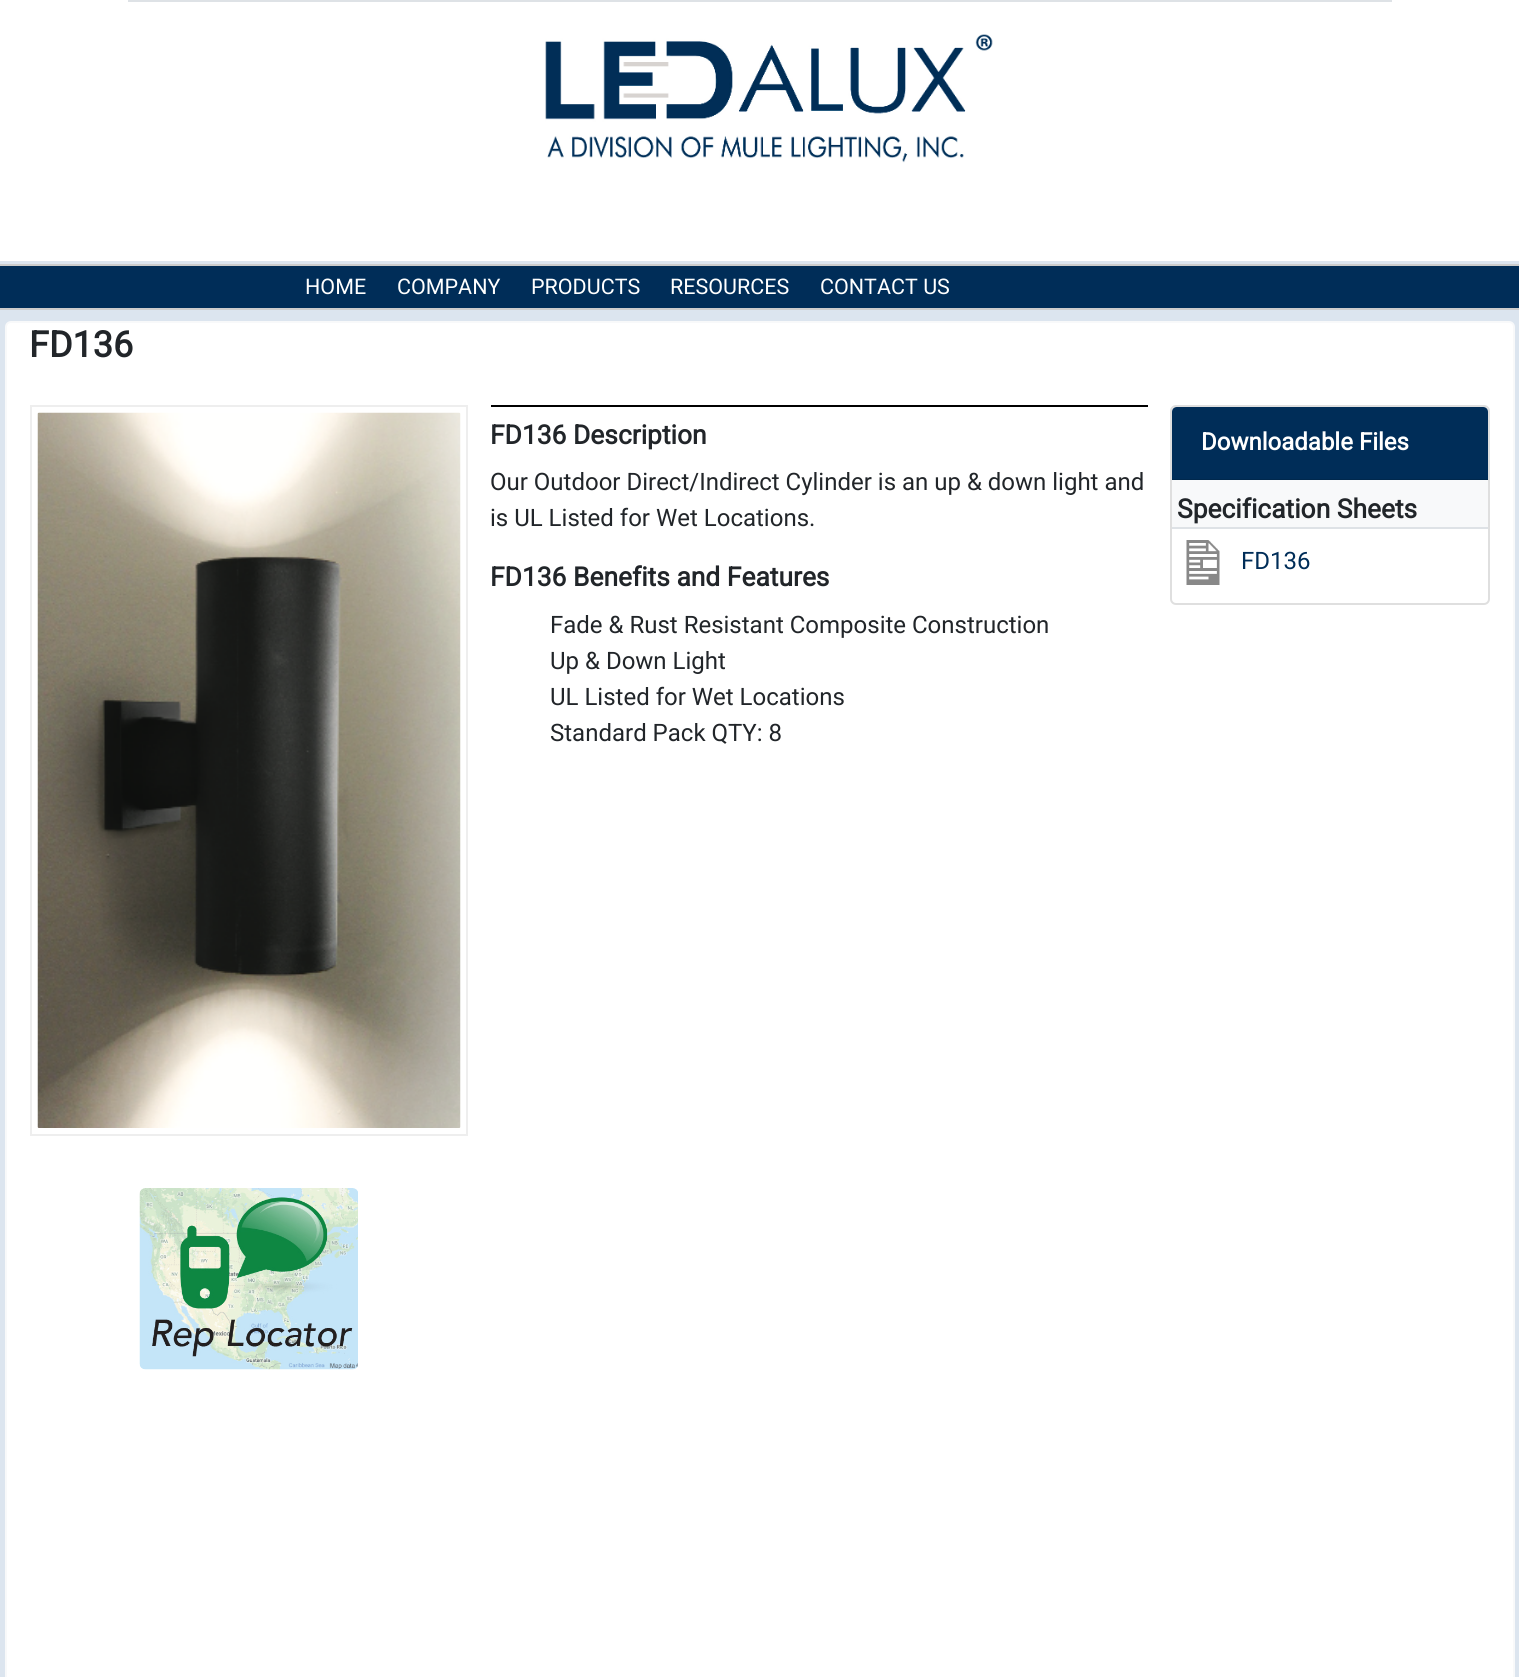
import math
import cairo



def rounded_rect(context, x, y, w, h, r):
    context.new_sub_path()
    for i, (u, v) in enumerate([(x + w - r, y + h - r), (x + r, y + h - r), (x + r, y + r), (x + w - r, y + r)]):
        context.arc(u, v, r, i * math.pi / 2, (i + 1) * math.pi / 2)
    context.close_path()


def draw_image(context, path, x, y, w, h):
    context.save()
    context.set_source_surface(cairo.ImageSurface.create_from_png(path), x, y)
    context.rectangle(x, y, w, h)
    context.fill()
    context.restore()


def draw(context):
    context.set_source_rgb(220 / 255, 229 / 255, 239 / 255)
    context.paint()
    context.set_source_rgb(1, 1, 1)
    context.rectangle(0, 0, 1519, 261)
    context.fill()
    context.set_source_rgb(222 / 255, 226 / 255, 230 / 255)
    context.rectangle(128, 0, 1264, 2)
    context.fill()
    draw_image(context, "images/1.png", 545, 34, 448, 129)
    context.set_source_rgb(0, 45 / 255, 88 / 255)
    context.rectangle(0, 266, 1519, 42)
    context.fill()
    context.set_source_rgb(204 / 255, 204 / 255, 204 / 255)
    context.rectangle(0, 264, 1519, 2)
    context.fill()
    context.rectangle(0, 308, 1519, 2)
    context.fill()
    context.set_source_rgb(1, 1, 1)
    rounded_rect(context, 6, 322, 1508, 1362, 5)
    context.fill_preserve()
    context.set_source_rgb(248 / 255, 249 / 255, 250 / 255)
    context.stroke()
    context.rectangle(31, 406, 436, 729)
    context.set_source_rgb(238 / 255, 238 / 255, 238 / 255)
    context.stroke()
    draw_image(context, "images/2.png", 37, 412, 424, 716)
    context.set_source_rgb(0, 0, 0)
    context.rectangle(491, 405, 657, 2)
    context.fill()
    rounded_rect(context, 1171, 406, 318, 198, 5)
    context.set_source_rgb(223 / 255, 223 / 255, 223 / 255)
    context.stroke()
    context.set_source_rgb(0, 45 / 255, 88 / 255)
    context.new_path()
    context.move_to(1177, 407)
    context.line_to(1483, 407)
    context.curve_to(1486, 407, 1488, 409, 1488, 412)
    context.line_to(1488, 480)
    context.line_to(1172, 480)
    context.line_to(1172, 412)
    context.curve_to(1172, 409, 1174, 407, 1177, 407)
    context.close_path()
    context.fill()
    context.set_source_rgb(0, 40 / 255, 77 / 255)
    context.rectangle(1172, 479, 316, 1)
    context.fill()
    context.set_source_rgb(248 / 255, 249 / 255, 250 / 255)
    context.rectangle(1172, 480, 316, 47)
    context.fill()
    context.set_source_rgb(222 / 255, 226 / 255, 230 / 255)
    context.rectangle(1172, 527, 316, 2)
    context.fill()
    draw_image(context, "images/3.png", 1186, 540, 34, 45)
    draw_image(context, "images/4.png", 139, 1188, 219, 182)
    context.select_font_face("Roboto")
    context.set_font_size(21.5)
    context.set_source_rgb(1, 1, 1)
    context.move_to(305, 294)
    context.show_text("HOME")
    context.move_to(397, 294)
    context.show_text("COMPANY")
    context.move_to(531, 294)
    context.show_text("PRODUCTS")
    context.move_to(670, 294)
    context.show_text("RESOURCES")
    context.move_to(820, 294)
    context.show_text("CONTACT US")
    context.select_font_face("Roboto", cairo.FontSlant.NORMAL, cairo.FontWeight.BOLD)
    context.set_font_size(36)
    context.set_source_rgb(33 / 255, 37 / 255, 41 / 255)
    context.move_to(29, 357)
    context.show_text("FD136")
    context.set_font_size(26.4)
    context.move_to(490, 444)
    context.show_text("FD136 Description")
    context.select_font_face("Roboto")
    context.set_font_size(24)
    context.move_to(490, 490)
    context.show_text("Our Outdoor Direct/Indirect Cylinder is an up & down light and")
    context.move_to(490, 526)
    context.show_text("is UL Listed for Wet Locations.")
    context.select_font_face("Roboto", cairo.FontSlant.NORMAL, cairo.FontWeight.BOLD)
    context.set_font_size(26.4)
    context.move_to(490, 586)
    context.show_text("FD136 Benefits and Features")
    context.select_font_face("Roboto")
    context.set_font_size(24)
    context.move_to(550, 633)
    context.show_text("Fade & Rust Resistant Composite Construction")
    context.move_to(550, 669)
    context.show_text("Up & Down Light")
    context.move_to(550, 705)
    context.show_text("UL Listed for Wet Locations")
    context.move_to(550, 741)
    context.show_text("Standard Pack QTY: 8")
    context.select_font_face("Roboto", cairo.FontSlant.NORMAL, cairo.FontWeight.BOLD)
    context.set_source_rgb(1, 1, 1)
    context.move_to(1201, 450)
    context.show_text("Downloadable Files")
    context.set_font_size(26.4)
    context.set_source_rgb(33 / 255, 37 / 255, 41 / 255)
    context.move_to(1177, 518)
    context.show_text("Specification Sheets")
    context.select_font_face("Roboto")
    context.set_font_size(24)
    context.set_source_rgb(0, 45 / 255, 88 / 255)
    context.move_to(1241, 569)
    context.show_text("FD136")


surface = cairo.ImageSurface(cairo.Format.RGB24, 1519, 1677)
context = cairo.Context(surface)
options = cairo.FontOptions()
options.set_hint_metrics(cairo.HintMetrics.OFF)
options.set_hint_style(cairo.HintStyle.NONE)
context.set_font_options(options)
context.set_miter_limit(4)
draw(context)
surface.write_to_png("out.png")
